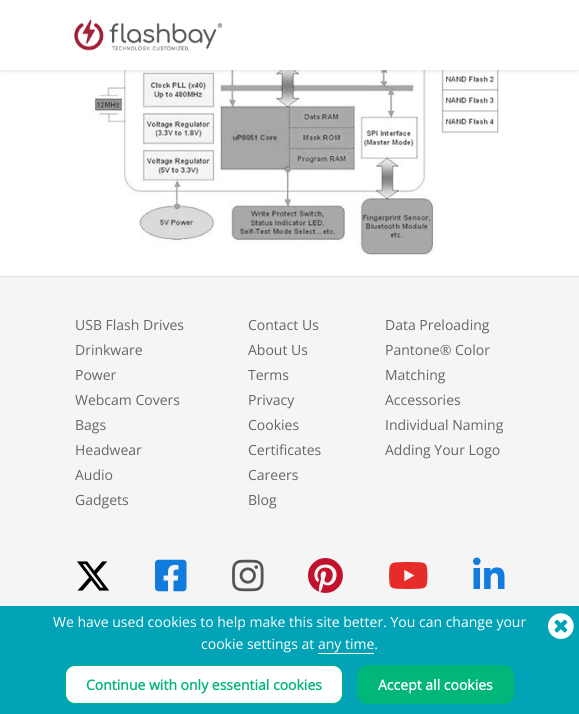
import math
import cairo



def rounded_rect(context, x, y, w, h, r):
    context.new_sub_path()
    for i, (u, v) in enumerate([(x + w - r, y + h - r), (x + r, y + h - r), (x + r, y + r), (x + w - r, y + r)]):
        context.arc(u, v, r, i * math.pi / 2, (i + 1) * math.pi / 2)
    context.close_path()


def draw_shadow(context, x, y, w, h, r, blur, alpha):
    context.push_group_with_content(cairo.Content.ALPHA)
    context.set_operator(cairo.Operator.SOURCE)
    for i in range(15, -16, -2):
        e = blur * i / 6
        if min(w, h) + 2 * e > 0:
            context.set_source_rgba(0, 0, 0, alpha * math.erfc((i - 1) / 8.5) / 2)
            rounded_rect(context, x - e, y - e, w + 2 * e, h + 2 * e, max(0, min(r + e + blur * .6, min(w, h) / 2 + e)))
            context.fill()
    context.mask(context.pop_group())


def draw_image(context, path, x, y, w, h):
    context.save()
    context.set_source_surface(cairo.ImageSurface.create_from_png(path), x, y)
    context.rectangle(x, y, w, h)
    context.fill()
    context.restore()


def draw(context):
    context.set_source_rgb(1, 1, 1)
    context.paint()
    draw_image(context, "images/2.png", 80, 70, 419, 185)
    context.set_source_rgb(0, 0, 0)
    draw_shadow(context, 0, 1, 579, 70, 0, 1.5, 0.11)
    context.set_source_rgb(1, 1, 1)
    context.rectangle(0, 0, 579, 70)
    context.fill()
    draw_image(context, "images/1.png", 73, 18, 150, 33)
    context.set_source_rgb(245 / 255, 245 / 255, 245 / 255)
    context.rectangle(0, 277, 579, 329)
    context.fill()
    context.set_source_rgb(226 / 255, 226 / 255, 226 / 255)
    context.rectangle(0, 276, 579, 1)
    context.fill()
    draw_image(context, "images/3.png", 77, 561, 33, 30)
    draw_image(context, "images/4.png", 155, 559, 32, 33)
    draw_image(context, "images/5.png", 232, 559, 32, 33)
    draw_image(context, "images/6.png", 308, 558, 35, 35)
    draw_image(context, "images/7.png", 389, 562, 39, 27)
    draw_image(context, "images/8.png", 473, 557, 32, 32)
    context.set_source_rgb(2 / 255, 163 / 255, 183 / 255)
    context.rectangle(0, 606, 579, 108)
    context.fill()
    context.set_source_rgb(1, 1, 1)
    context.rectangle(318, 653, 56, 1)
    context.fill()
    draw_image(context, "images/9.png", 548, 613, 26, 26)
    rounded_rect(context, 65.5, 665.5, 277, 38, 9.5)
    context.fill_preserve()
    context.set_source_rgb(0, 182 / 255, 122 / 255)
    context.set_line_width(1)
    context.stroke()
    rounded_rect(context, 357.5, 665.5, 156, 38, 9.5)
    context.fill_preserve()
    context.stroke()
    context.select_font_face("Open Sans")
    context.set_font_size(14)
    context.set_source_rgb(102 / 255, 102 / 255, 102 / 255)
    context.move_to(75, 330)
    context.show_text("USB Flash Drives")
    context.move_to(75, 355)
    context.show_text("Drinkware")
    context.move_to(75, 380)
    context.show_text("Power")
    context.move_to(75, 405)
    context.show_text("Webcam Covers")
    context.move_to(75, 430)
    context.show_text("Bags")
    context.move_to(75, 455)
    context.show_text("Headwear")
    context.move_to(75, 480)
    context.show_text("Audio")
    context.move_to(75, 505)
    context.show_text("Gadgets")
    context.move_to(248, 330)
    context.show_text("Contact Us")
    context.move_to(248, 355)
    context.show_text("About Us")
    context.move_to(248, 380)
    context.show_text("Terms")
    context.move_to(248, 405)
    context.show_text("Privacy")
    context.move_to(248, 430)
    context.show_text("Cookies")
    context.move_to(248, 455)
    context.show_text("Certificates")
    context.move_to(248, 480)
    context.show_text("Careers")
    context.move_to(248, 505)
    context.show_text("Blog")
    context.move_to(385, 330)
    context.show_text("Data Preloading")
    context.move_to(385, 355)
    context.show_text("Pantone® Color")
    context.move_to(385, 380)
    context.show_text("Matching")
    context.move_to(385, 405)
    context.show_text("Accessories")
    context.move_to(385, 430)
    context.show_text("Individual Naming")
    context.move_to(385, 455)
    context.show_text("Adding Your Logo")
    context.set_source_rgb(1, 1, 1)
    context.move_to(53, 627)
    context.show_text("We have used cookies to help make this site better. You can change your")
    context.move_to(201, 649)
    context.show_text("cookie settings at any time.")
    context.select_font_face("Open Sans", cairo.FontSlant.NORMAL, cairo.FontWeight.BOLD)
    context.set_source_rgb(0, 182 / 255, 122 / 255)
    context.move_to(86, 690)
    context.show_text("Continue with only essential cookies")
    context.set_source_rgb(1, 1, 1)
    context.move_to(378, 690)
    context.show_text("Accept all cookies")


surface = cairo.ImageSurface(cairo.Format.RGB24, 579, 714)
context = cairo.Context(surface)
options = cairo.FontOptions()
options.set_hint_metrics(cairo.HintMetrics.OFF)
options.set_hint_style(cairo.HintStyle.NONE)
context.set_font_options(options)
context.set_miter_limit(4)
draw(context)
surface.write_to_png("out.png")
